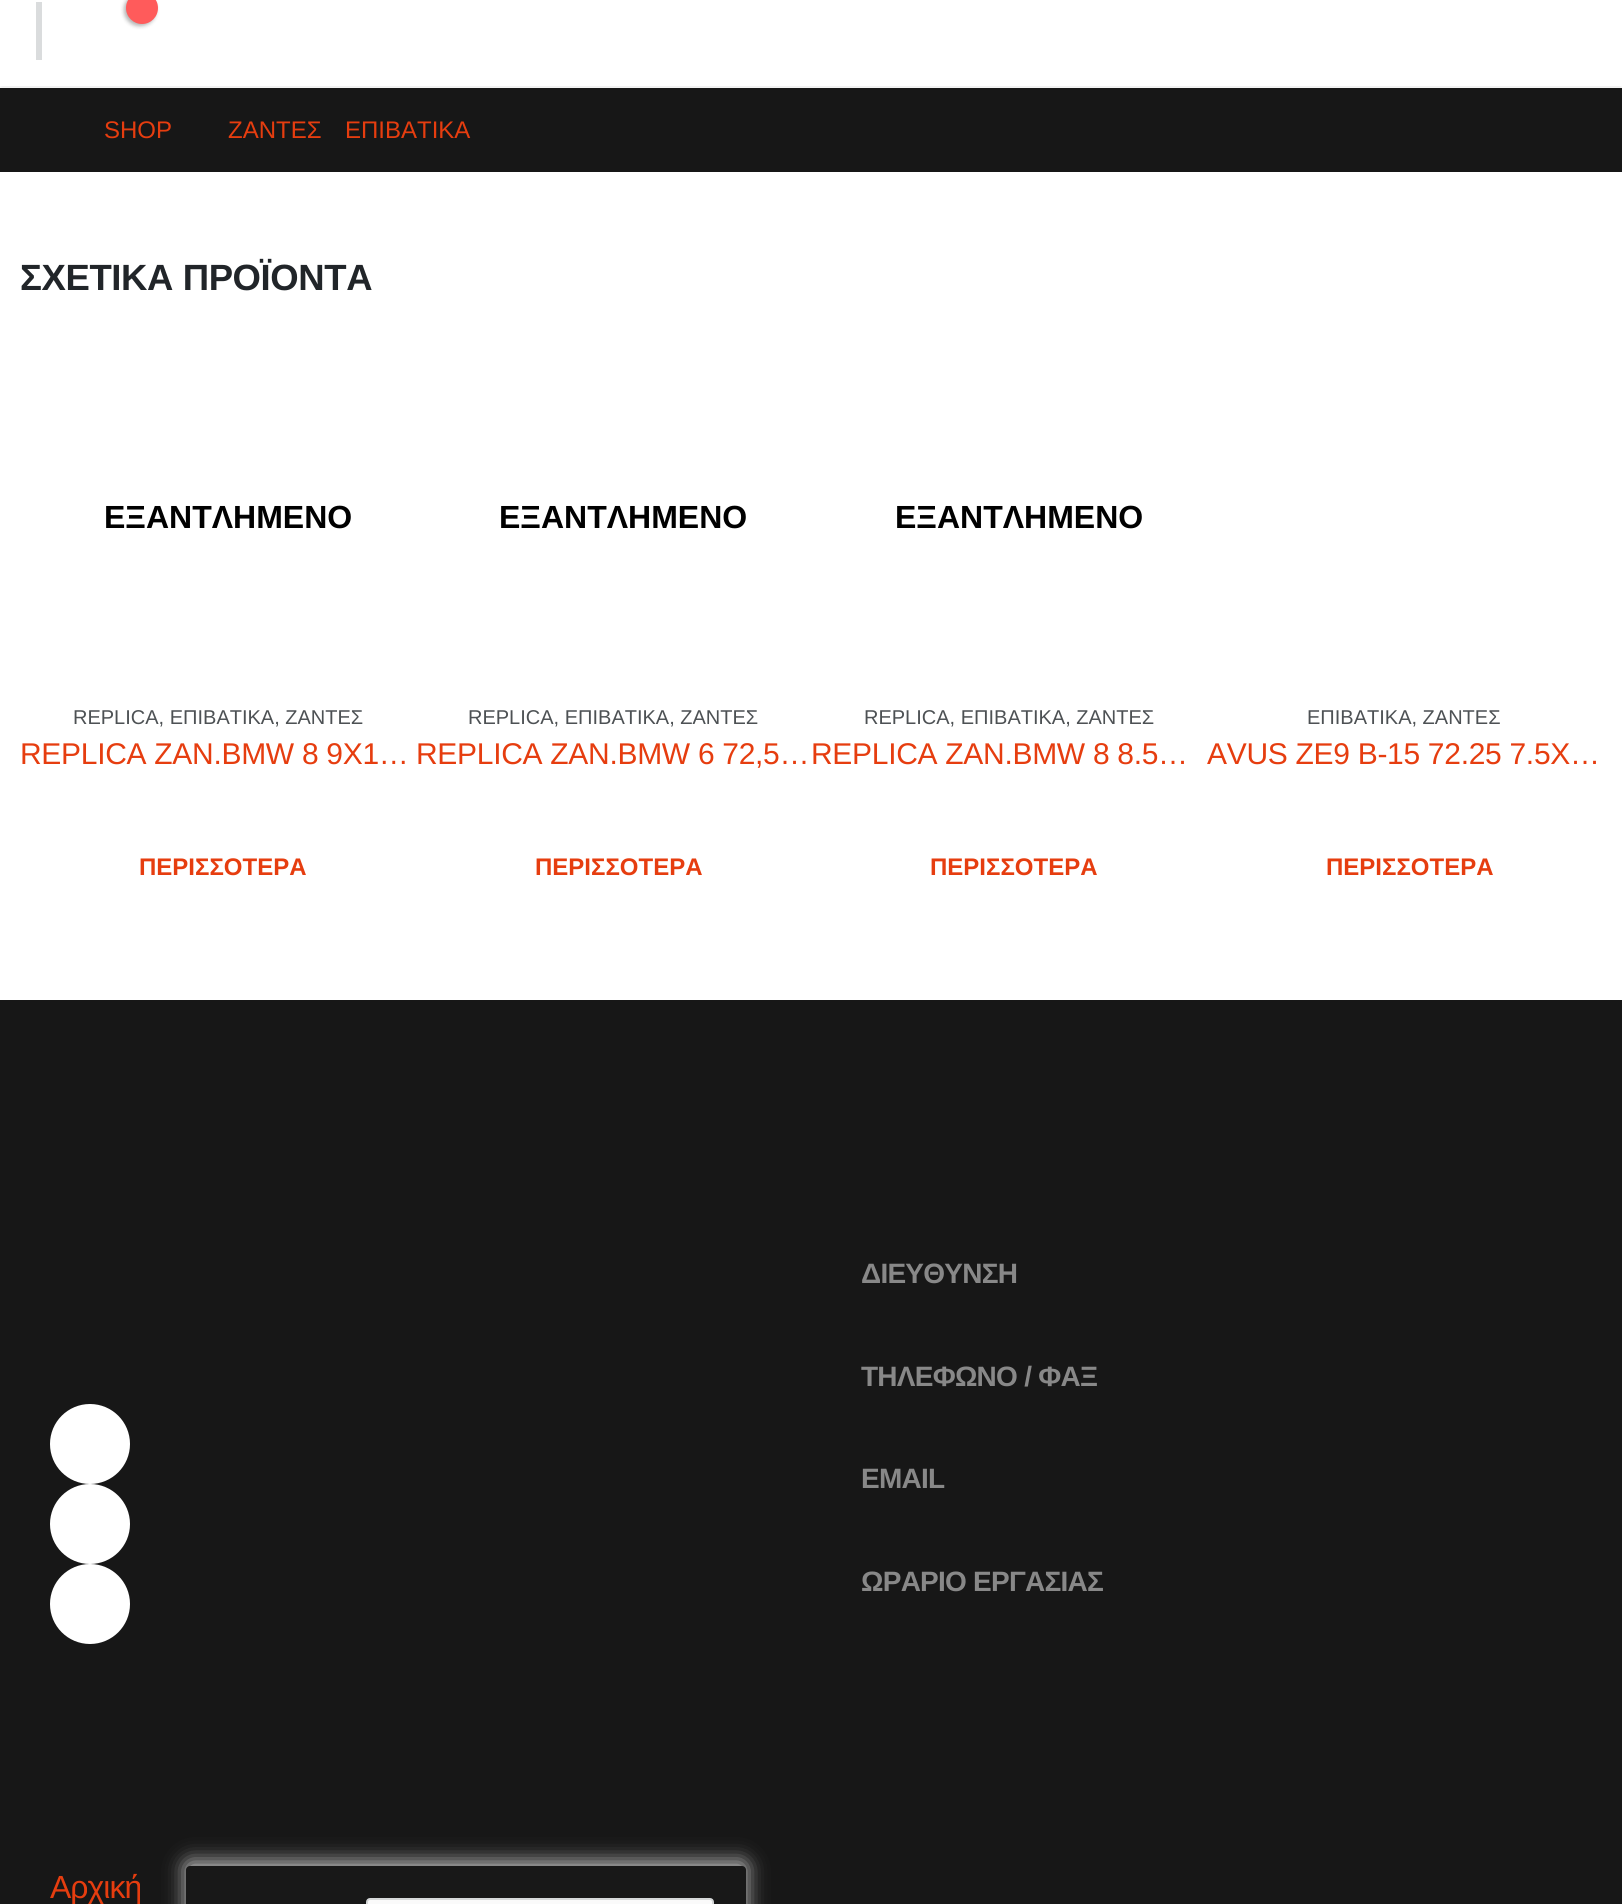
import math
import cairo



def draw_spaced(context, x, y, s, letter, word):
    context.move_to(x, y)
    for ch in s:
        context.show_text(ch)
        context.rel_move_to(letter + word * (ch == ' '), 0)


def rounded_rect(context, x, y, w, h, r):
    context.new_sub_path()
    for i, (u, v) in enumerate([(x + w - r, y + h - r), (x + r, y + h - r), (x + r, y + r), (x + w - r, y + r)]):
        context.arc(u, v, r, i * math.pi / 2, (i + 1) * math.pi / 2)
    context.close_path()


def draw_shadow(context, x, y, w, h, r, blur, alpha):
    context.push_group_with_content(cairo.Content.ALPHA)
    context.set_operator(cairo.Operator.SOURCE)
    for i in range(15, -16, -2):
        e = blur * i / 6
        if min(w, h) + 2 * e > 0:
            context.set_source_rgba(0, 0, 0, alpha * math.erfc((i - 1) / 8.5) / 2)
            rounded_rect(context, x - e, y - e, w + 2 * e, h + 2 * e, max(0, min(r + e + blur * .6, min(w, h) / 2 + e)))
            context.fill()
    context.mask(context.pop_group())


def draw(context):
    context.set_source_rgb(1, 1, 1)
    context.paint()
    context.set_source_rgb(23 / 255, 23 / 255, 23 / 255)
    context.rectangle(0, 88, 1622, 84)
    context.fill()
    context.save()
    context.rectangle(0, 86, 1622, 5)
    context.clip()
    context.set_source_rgb(0, 0, 0)
    draw_shadow(context, 0, -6, 1622, 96, 0, 2, 0.06)
    context.restore()
    context.set_source_rgb(218 / 255, 220 / 255, 221 / 255)
    context.rectangle(36, 2, 6, 58)
    context.fill()
    context.set_source_rgb(0, 0, 0)
    draw_shadow(context, 124, -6, 32, 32, 16, 2, 0.3)
    context.set_source_rgb(1, 91 / 255, 91 / 255)
    context.arc(142, 8, 16, 0, 2 * math.pi)
    context.fill()
    context.set_source_rgb(23 / 255, 23 / 255, 23 / 255)
    context.rectangle(0, 1000, 1622, 904)
    context.fill()
    context.set_source_rgb(1, 1, 1)
    context.arc(90, 1444, 40, 0, 2 * math.pi)
    context.fill()
    context.arc(90, 1524, 40, 0, 2 * math.pi)
    context.fill()
    context.arc(90, 1604, 40, 0, 2 * math.pi)
    context.fill()
    context.set_source_rgb(202 / 255, 202 / 255, 202 / 255)
    draw_shadow(context, 186, 1862, 560, 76, 4, 10, 1)
    context.set_source_rgb(24 / 255, 24 / 255, 24 / 255)
    rounded_rect(context, 186, 1866, 560, 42, 4)
    context.fill()
    context.set_source_rgb(250 / 255, 250 / 255, 250 / 255)
    rounded_rect(context, 367, 1899, 346, 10, 3)
    context.fill_preserve()
    context.set_source_rgb(214 / 255, 216 / 255, 217 / 255)
    context.stroke()
    context.select_font_face("Liberation Sans")
    context.set_font_size(24)
    context.set_source_rgb(230 / 255, 61 / 255, 15 / 255)
    context.move_to(104, 138)
    context.show_text("SHOP")
    context.move_to(228, 138)
    context.show_text("ΖΑΝΤΕΣ")
    context.move_to(345, 138)
    context.show_text("ΕΠΙΒΑΤΙΚΑ")
    context.select_font_face("Liberation Sans", cairo.FontSlant.NORMAL, cairo.FontWeight.BOLD)
    context.set_font_size(36.5)
    context.set_source_rgb(33 / 255, 37 / 255, 41 / 255)
    draw_spaced(context, 20, 290, "ΣΧΕΤΙΚΑ ΠΡΟΪΟΝΤΑ", -0.4, 0)
    context.set_font_size(32)
    context.set_source_rgb(0, 0, 0)
    context.move_to(104, 528)
    context.show_text("ΕΞΑΝΤΛΗΜΕΝΟ")
    context.select_font_face("Liberation Sans")
    context.set_font_size(20)
    context.set_source_rgb(77 / 255, 81 / 255, 84 / 255)
    context.move_to(73, 724)
    context.show_text("REPLICA, ΕΠΙΒΑΤΙΚΑ, ΖΑΝΤΕΣ")
    context.set_font_size(30)
    context.set_source_rgb(230 / 255, 61 / 255, 15 / 255)
    draw_spaced(context, 20, 764, "REPLICA ZAN.BMW 8 9X1…", -0.3, 0)
    context.select_font_face("Liberation Sans", cairo.FontSlant.NORMAL, cairo.FontWeight.BOLD)
    context.set_font_size(24)
    context.move_to(139, 875)
    context.show_text("ΠΕΡΙΣΣΟΤΕΡΑ")
    context.set_font_size(32)
    context.set_source_rgb(0, 0, 0)
    context.move_to(499, 528)
    context.show_text("ΕΞΑΝΤΛΗΜΕΝΟ")
    context.select_font_face("Liberation Sans")
    context.set_font_size(20)
    context.set_source_rgb(77 / 255, 81 / 255, 84 / 255)
    context.move_to(468, 724)
    context.show_text("REPLICA, ΕΠΙΒΑΤΙΚΑ, ΖΑΝΤΕΣ")
    context.set_font_size(30)
    context.set_source_rgb(230 / 255, 61 / 255, 15 / 255)
    draw_spaced(context, 416, 764, "REPLICA ZAN.BMW 6 72,5…", -0.3, 0)
    context.select_font_face("Liberation Sans", cairo.FontSlant.NORMAL, cairo.FontWeight.BOLD)
    context.set_font_size(24)
    context.move_to(535, 875)
    context.show_text("ΠΕΡΙΣΣΟΤΕΡΑ")
    context.set_font_size(32)
    context.set_source_rgb(0, 0, 0)
    context.move_to(895, 528)
    context.show_text("ΕΞΑΝΤΛΗΜΕΝΟ")
    context.select_font_face("Liberation Sans")
    context.set_font_size(20)
    context.set_source_rgb(77 / 255, 81 / 255, 84 / 255)
    context.move_to(864, 724)
    context.show_text("REPLICA, ΕΠΙΒΑΤΙΚΑ, ΖΑΝΤΕΣ")
    context.set_font_size(30)
    context.set_source_rgb(230 / 255, 61 / 255, 15 / 255)
    draw_spaced(context, 811, 764, "REPLICA ZAN.BMW 8 8.5…", -0.3, 0)
    context.select_font_face("Liberation Sans", cairo.FontSlant.NORMAL, cairo.FontWeight.BOLD)
    context.set_font_size(24)
    context.move_to(930, 875)
    context.show_text("ΠΕΡΙΣΣΟΤΕΡΑ")
    context.select_font_face("Liberation Sans")
    context.set_font_size(20)
    context.set_source_rgb(77 / 255, 81 / 255, 84 / 255)
    context.move_to(1307, 724)
    context.show_text("ΕΠΙΒΑΤΙΚΑ, ΖΑΝΤΕΣ")
    context.set_font_size(30)
    context.set_source_rgb(230 / 255, 61 / 255, 15 / 255)
    draw_spaced(context, 1207, 764, "AVUS ΖΕ9 Β-15 72.25 7.5Χ…", -0.3, 0)
    context.select_font_face("Liberation Sans", cairo.FontSlant.NORMAL, cairo.FontWeight.BOLD)
    context.set_font_size(24)
    context.move_to(1326, 875)
    context.show_text("ΠΕΡΙΣΣΟΤΕΡΑ")
    context.set_font_size(28)
    context.set_source_rgb(136 / 255, 136 / 255, 136 / 255)
    draw_spaced(context, 861, 1283, "ΔΙΕΥΘΥΝΣΗ", -0.75, 0)
    draw_spaced(context, 861, 1386, "ΤΗΛΕΦΩΝΟ / ΦΑΞ", -0.75, 0)
    draw_spaced(context, 861, 1488, "EMAIL", -0.75, 0)
    draw_spaced(context, 861, 1591, "ΩΡΑΡΙΟ ΕΡΓΑΣΙΑΣ", -0.75, 0)
    context.select_font_face("Liberation Sans")
    context.set_font_size(32)
    context.set_source_rgb(230 / 255, 61 / 255, 15 / 255)
    draw_spaced(context, 50, 1898, "Αρχική", -1, 0)


surface = cairo.ImageSurface(cairo.Format.RGB24, 1622, 1904)
context = cairo.Context(surface)
options = cairo.FontOptions()
options.set_hint_metrics(cairo.HintMetrics.OFF)
options.set_hint_style(cairo.HintStyle.NONE)
context.set_font_options(options)
context.set_miter_limit(4)
draw(context)
surface.write_to_png("out.png")
